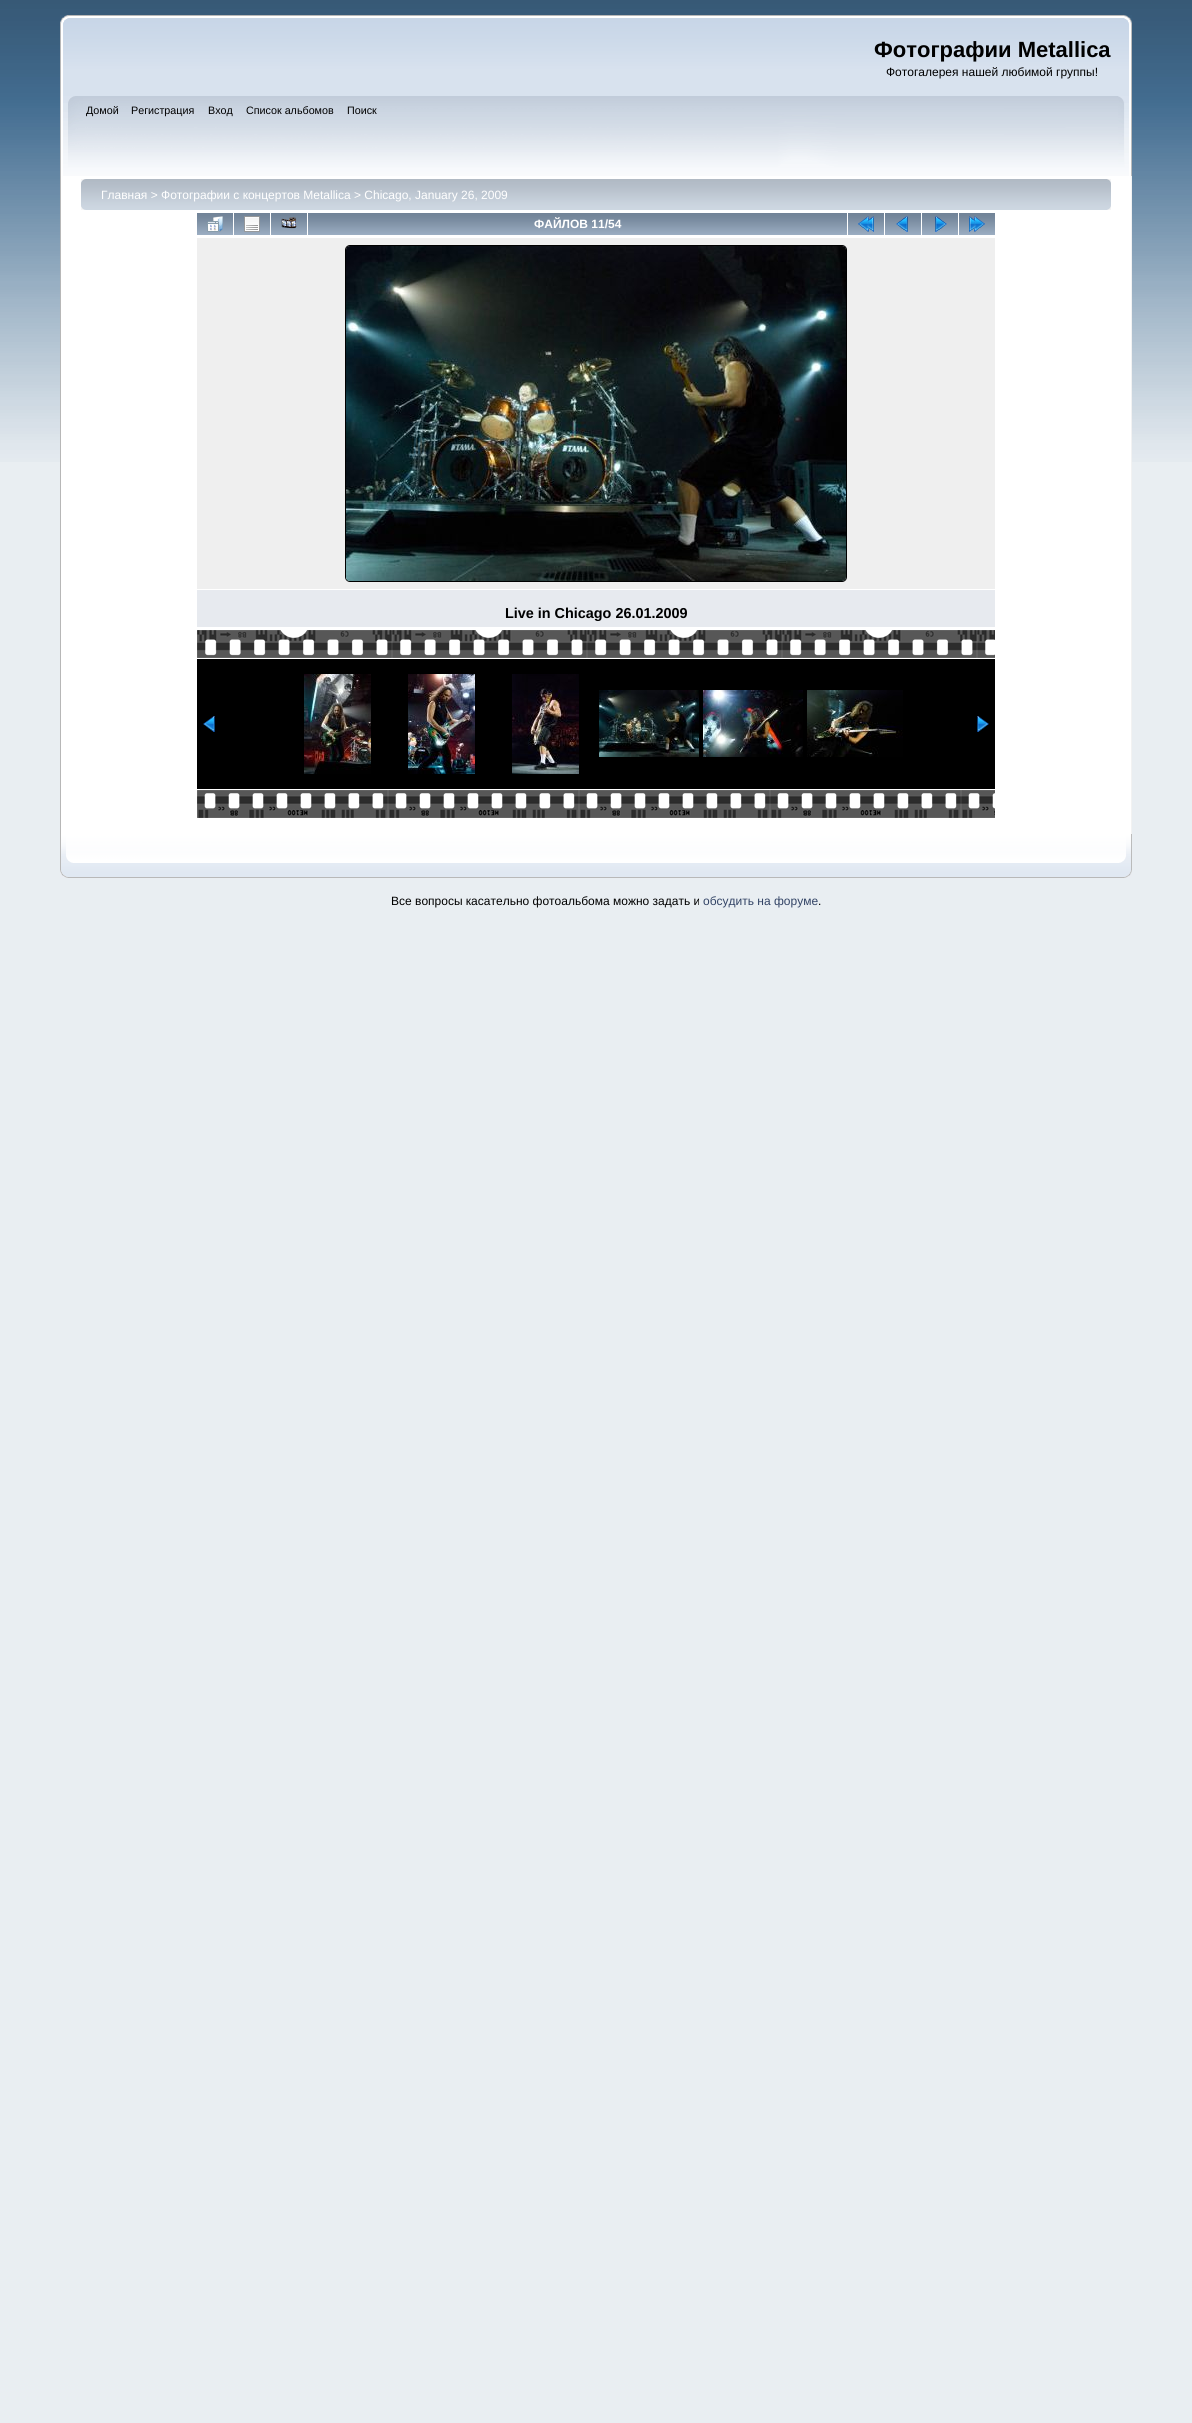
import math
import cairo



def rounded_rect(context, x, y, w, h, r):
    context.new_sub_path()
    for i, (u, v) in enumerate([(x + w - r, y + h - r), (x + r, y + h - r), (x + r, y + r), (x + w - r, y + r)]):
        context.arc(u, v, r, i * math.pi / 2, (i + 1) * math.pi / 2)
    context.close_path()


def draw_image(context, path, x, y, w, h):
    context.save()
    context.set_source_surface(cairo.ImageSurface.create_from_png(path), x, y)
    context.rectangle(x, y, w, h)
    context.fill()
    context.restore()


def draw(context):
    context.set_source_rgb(233 / 255, 238 / 255, 242 / 255)
    context.paint()
    draw_image(context, "images/1.png", 0, 0, 1192, 462)
    draw_image(context, "images/2.png", 60, 15, 1064, 81)
    draw_image(context, "images/3.png", 1124, 15, 8, 81)
    draw_image(context, "images/4.png", 60, 96, 1058, 80)
    draw_image(context, "images/5.png", 1118, 96, 14, 80)
    context.set_source_rgb(1, 1, 1)
    context.rectangle(61, 176, 1070, 658)
    context.fill()
    context.set_source_rgb(183 / 255, 183 / 255, 183 / 255)
    context.rectangle(60, 176, 1, 658)
    context.fill()
    context.set_source_rgb(242 / 255, 242 / 255, 242 / 255)
    context.rectangle(1131, 176, 1, 658)
    context.fill()
    draw_image(context, "images/6.png", 81, 179, 1026, 31)
    draw_image(context, "images/7.png", 1107, 179, 4, 31)
    draw_image(context, "images/8.png", 197, 213, 36, 22)
    draw_image(context, "images/9.png", 207, 216, 16, 16)
    draw_image(context, "images/8.png", 234, 213, 36, 22)
    draw_image(context, "images/10.png", 244, 216, 16, 16)
    draw_image(context, "images/8.png", 271, 213, 36, 22)
    draw_image(context, "images/11.png", 281, 217, 16, 12)
    draw_image(context, "images/12.png", 308, 213, 539, 22)
    draw_image(context, "images/8.png", 848, 213, 36, 22)
    draw_image(context, "images/13.png", 858, 216, 16, 16)
    draw_image(context, "images/8.png", 885, 213, 36, 22)
    draw_image(context, "images/14.png", 896, 216, 12, 16)
    draw_image(context, "images/8.png", 922, 213, 36, 22)
    draw_image(context, "images/15.png", 935, 216, 12, 16)
    draw_image(context, "images/8.png", 959, 213, 36, 22)
    draw_image(context, "images/16.png", 969, 216, 16, 16)
    context.set_source_rgb(239 / 255, 239 / 255, 239 / 255)
    context.rectangle(197, 238, 798, 351)
    context.fill()
    rounded_rect(context, 345.5, 245.5, 501, 336, 4.5)
    context.set_source_rgb(0, 0, 0)
    context.set_line_width(1)
    context.stroke()
    draw_image(context, "images/17.png", 346, 246, 500, 335)
    context.set_source_rgb(231 / 255, 234 / 255, 239 / 255)
    context.rectangle(197, 590, 798, 37)
    context.fill()
    draw_image(context, "images/18.png", 197, 630, 798, 28)
    context.set_source_rgb(0, 0, 0)
    context.rectangle(197, 659, 798, 130)
    context.fill()
    draw_image(context, "images/19.png", 203, 716, 12, 16)
    draw_image(context, "images/20.png", 304, 674, 67, 100)
    draw_image(context, "images/21.png", 408, 674, 67, 100)
    draw_image(context, "images/22.png", 512, 674, 67, 100)
    draw_image(context, "images/23.png", 599, 690, 100, 67)
    draw_image(context, "images/24.png", 703, 690, 100, 67)
    draw_image(context, "images/25.png", 807, 690, 96, 67)
    draw_image(context, "images/26.png", 977, 716, 12, 16)
    draw_image(context, "images/27.png", 197, 790, 798, 28)
    draw_image(context, "images/28.png", 60, 834, 1059, 44)
    draw_image(context, "images/29.png", 1119, 834, 13, 44)
    context.select_font_face("Liberation Sans", cairo.FontSlant.NORMAL, cairo.FontWeight.BOLD)
    context.set_font_size(22)
    context.move_to(874, 57)
    context.show_text("Фотографии Metallica")
    context.select_font_face("Liberation Sans")
    context.set_font_size(12)
    context.move_to(886, 76)
    context.show_text("Фотогалерея нашей любимой группы!")
    context.set_font_size(10.75)
    context.move_to(86, 114)
    context.show_text("Домой")
    context.move_to(131, 114)
    context.show_text("Регистрация")
    context.move_to(208, 114)
    context.show_text("Вход")
    context.move_to(246, 114)
    context.show_text("Список альбомов")
    context.move_to(347, 114)
    context.show_text("Поиск")
    context.set_font_size(12)
    context.set_source_rgb(1, 1, 1)
    context.move_to(101, 199)
    context.show_text("Главная > Фотографии с концертов Metallica > Chicago, January 26, 2009")
    context.select_font_face("Liberation Sans", cairo.FontSlant.NORMAL, cairo.FontWeight.BOLD)
    context.move_to(534, 228)
    context.show_text("ФАЙЛОВ 11/54")
    context.set_font_size(14.4)
    context.set_source_rgb(0, 0, 0)
    context.move_to(505, 618)
    context.show_text("Live in Chicago 26.01.2009")
    context.select_font_face("Liberation Sans")
    context.set_font_size(12)
    context.move_to(391, 905)
    context.show_text("Все вопросы касательно фотоальбома можно задать и")
    context.set_source_rgb(51 / 255, 68 / 255, 102 / 255)
    context.move_to(703, 905)
    context.show_text("обсудить на форуме")
    context.set_source_rgb(0, 0, 0)
    context.move_to(818, 905)
    context.show_text(".")


surface = cairo.ImageSurface(cairo.Format.RGB24, 1192, 2423)
context = cairo.Context(surface)
options = cairo.FontOptions()
options.set_hint_metrics(cairo.HintMetrics.OFF)
options.set_hint_style(cairo.HintStyle.NONE)
context.set_font_options(options)
context.set_miter_limit(4)
draw(context)
surface.write_to_png("out.png")
